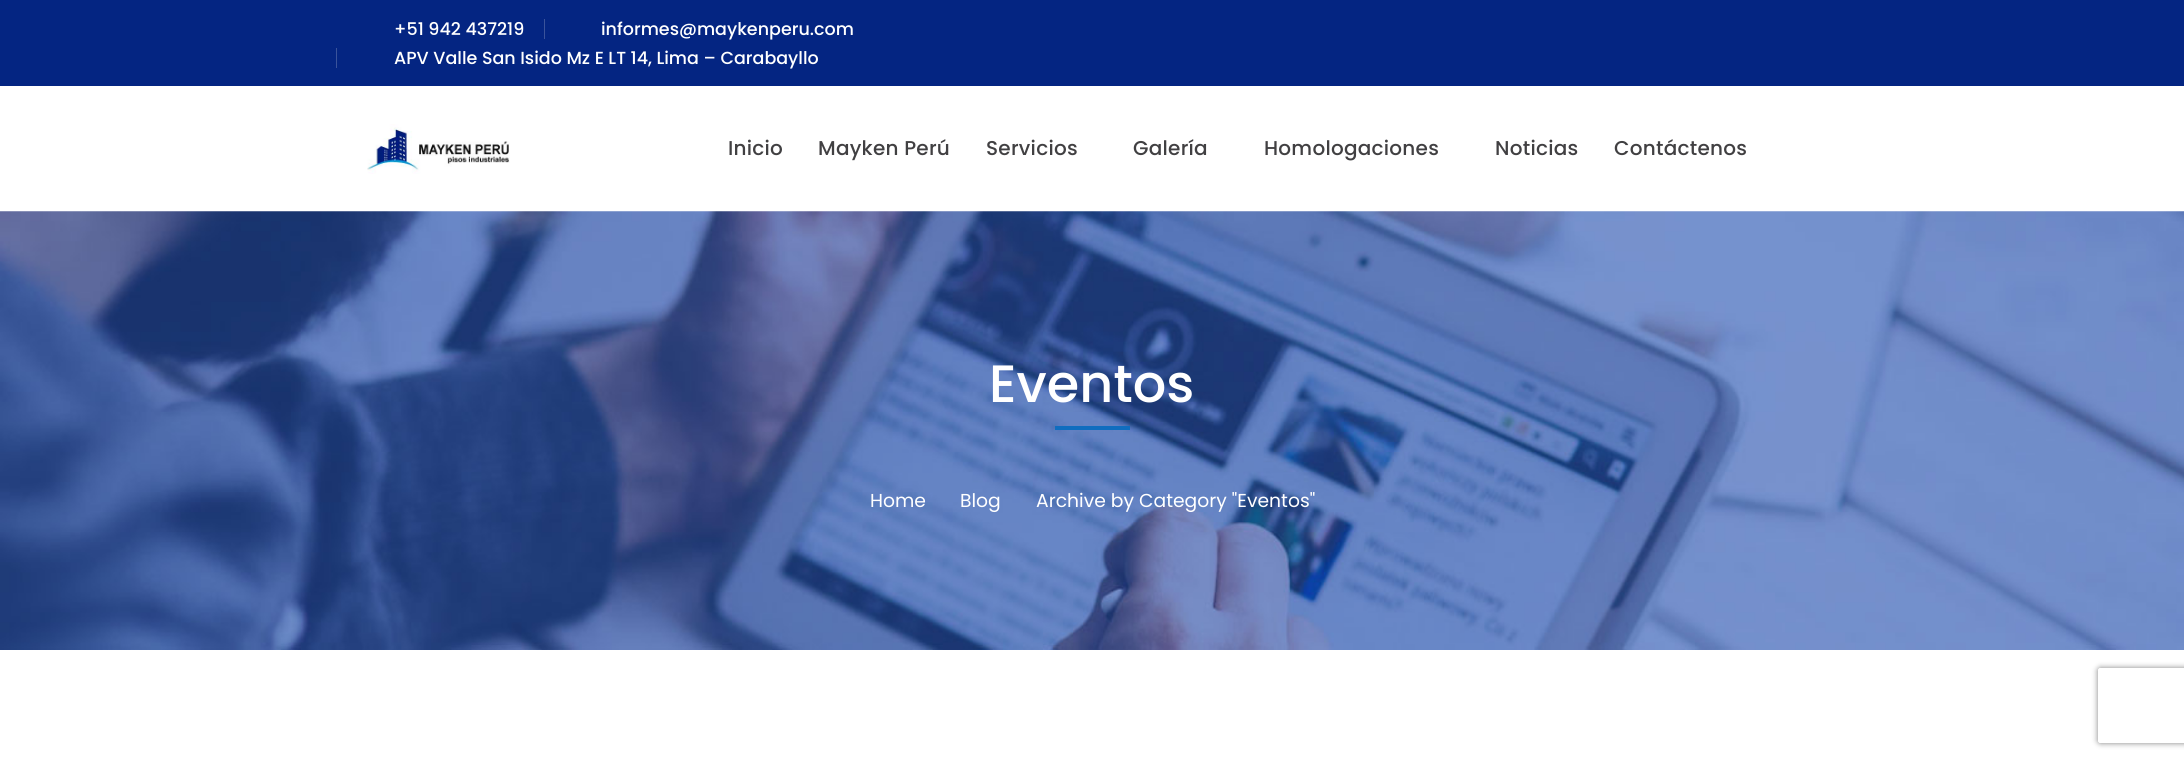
import math
import cairo



def draw_spaced(context, x, y, s, letter, word):
    context.move_to(x, y)
    for ch in s:
        context.show_text(ch)
        context.rel_move_to(letter + word * (ch == ' '), 0)


def rounded_rect(context, x, y, w, h, r):
    context.new_sub_path()
    for i, (u, v) in enumerate([(x + w - r, y + h - r), (x + r, y + h - r), (x + r, y + r), (x + w - r, y + r)]):
        context.arc(u, v, r, i * math.pi / 2, (i + 1) * math.pi / 2)
    context.close_path()


def draw_shadow(context, x, y, w, h, r, blur, alpha):
    context.push_group_with_content(cairo.Content.ALPHA)
    context.set_operator(cairo.Operator.SOURCE)
    for i in range(15, -16, -2):
        e = blur * i / 6
        if min(w, h) + 2 * e > 0:
            context.set_source_rgba(0, 0, 0, alpha * math.erfc((i - 1) / 8.5) / 2)
            rounded_rect(context, x - e, y - e, w + 2 * e, h + 2 * e, max(0, min(r + e + blur * .6, min(w, h) / 2 + e)))
            context.fill()
    context.mask(context.pop_group())


def draw_image(context, path, x, y, w, h):
    context.save()
    context.set_source_surface(cairo.ImageSurface.create_from_png(path), x, y)
    context.rectangle(x, y, w, h)
    context.fill()
    context.restore()


def draw(context):
    context.set_source_rgb(1, 1, 1)
    context.paint()
    context.set_source_rgb(4 / 255, 37 / 255, 130 / 255)
    context.rectangle(0, 0, 2184, 86)
    context.fill()
    context.set_source_rgb(58 / 255, 83 / 255, 155 / 255)
    context.rectangle(544, 19, 1, 20)
    context.fill()
    context.rectangle(336, 48, 1, 20)
    context.fill()
    draw_image(context, "images/1.png", 367, 124, 143, 50)
    draw_image(context, "images/2.png", 0, 211, 2184, 439)
    context.set_source_rgb(15 / 255, 109 / 255, 191 / 255)
    context.rectangle(1055, 426, 75, 4)
    context.fill()
    context.save()
    context.set_fill_rule(cairo.FillRule.EVEN_ODD)
    context.new_path()
    context.move_to(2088, 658)
    context.line_to(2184, 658)
    context.line_to(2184, 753)
    context.line_to(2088, 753)
    context.close_path()
    context.move_to(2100.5, 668)
    context.line_to(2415.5, 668)
    context.curve_to(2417, 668, 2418, 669, 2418, 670.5)
    context.line_to(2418, 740.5)
    context.curve_to(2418, 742, 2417, 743, 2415.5, 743)
    context.line_to(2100.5, 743)
    context.curve_to(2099, 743, 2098, 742, 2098, 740.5)
    context.line_to(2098, 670.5)
    context.curve_to(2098, 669, 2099, 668, 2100.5, 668)
    context.close_path()
    context.clip()
    context.set_source_rgb(128 / 255, 128 / 255, 128 / 255)
    draw_shadow(context, 2098, 668, 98, 75, 2.5, 3, 1)
    context.restore()
    context.select_font_face("Poppins Medium")
    context.set_font_size(17.5)
    context.set_source_rgb(1, 1, 1)
    context.move_to(394, 35)
    context.show_text("+51 942 437219")
    context.move_to(601, 35)
    context.show_text("informes@maykenperu.com")
    context.move_to(394, 64)
    context.show_text("APV Valle San Isido Mz E LT 14, Lima – Carabayllo")
    context.set_font_size(20)
    context.set_source_rgb(65 / 255, 64 / 255, 66 / 255)
    draw_spaced(context, 728, 155, "Inicio", 0.25, 0)
    draw_spaced(context, 818, 155, "Mayken Perú", 0.25, 0)
    draw_spaced(context, 986, 155, "Servicios", 0.25, 0)
    draw_spaced(context, 1133, 155, "Galería", 0.25, 0)
    draw_spaced(context, 1264, 155, "Homologaciones", 0.25, 0)
    draw_spaced(context, 1495, 155, "Noticias", 0.25, 0)
    draw_spaced(context, 1614, 155, "Contáctenos", 0.25, 0)
    context.set_font_size(52.5)
    context.set_source_rgb(1, 1, 1)
    context.move_to(989, 402)
    context.show_text("Eventos")
    context.select_font_face("Poppins")
    context.set_font_size(18.75)
    context.move_to(870, 507)
    context.show_text("Home")
    context.move_to(960, 507)
    context.show_text("Blog")
    context.move_to(1036, 507)
    context.show_text("Archive by Category \"Eventos\"")


surface = cairo.ImageSurface(cairo.Format.RGB24, 2184, 760)
context = cairo.Context(surface)
options = cairo.FontOptions()
options.set_hint_metrics(cairo.HintMetrics.OFF)
options.set_hint_style(cairo.HintStyle.NONE)
context.set_font_options(options)
context.set_miter_limit(4)
draw(context)
surface.write_to_png("out.png")
